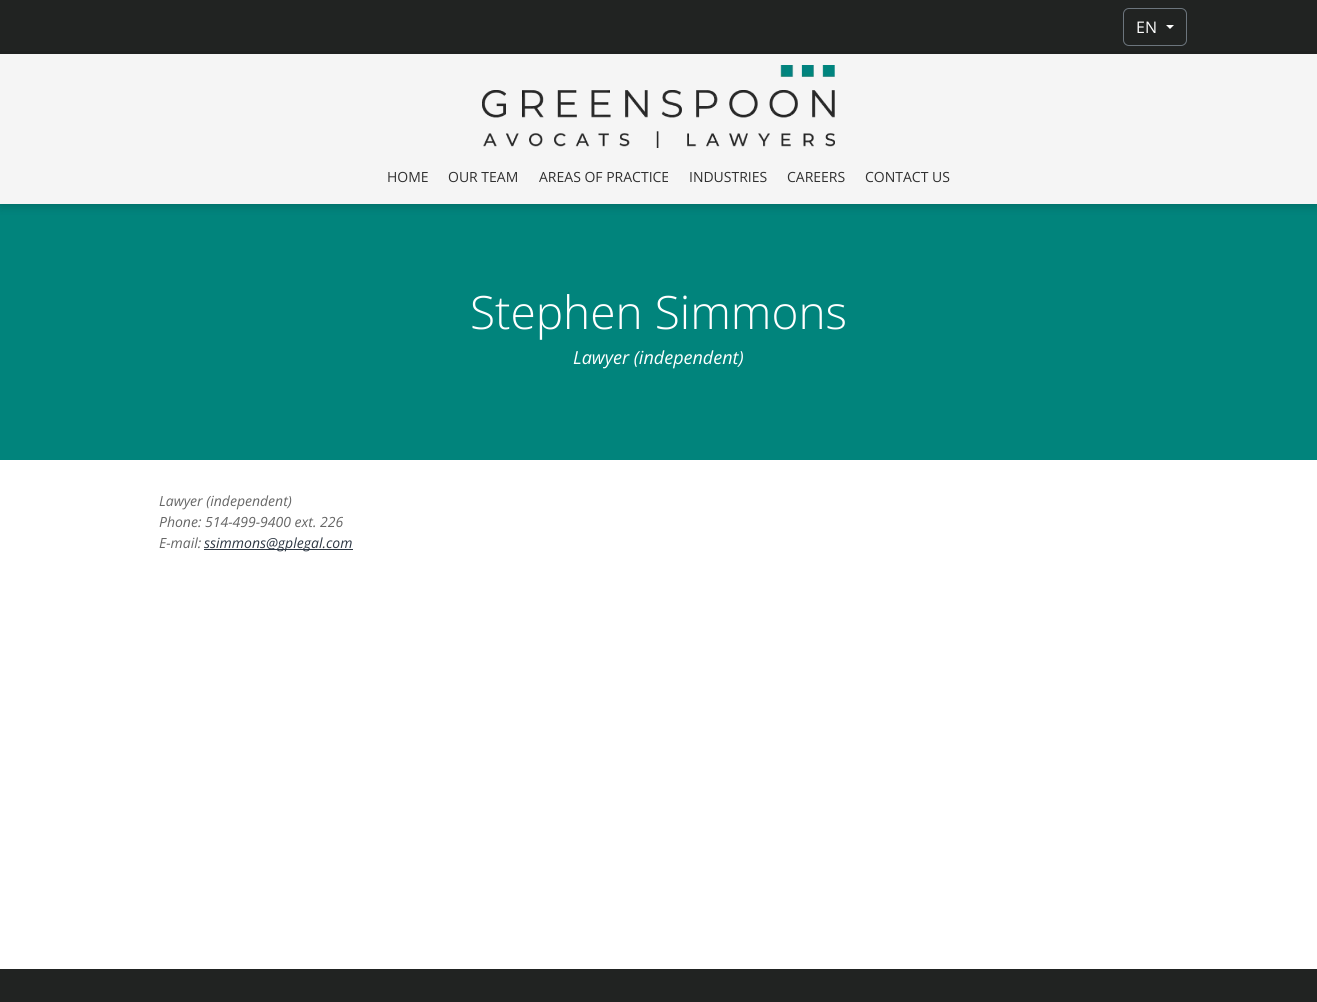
import math
import cairo



def rounded_rect(context, x, y, w, h, r):
    context.new_sub_path()
    for i, (u, v) in enumerate([(x + w - r, y + h - r), (x + r, y + h - r), (x + r, y + r), (x + w - r, y + r)]):
        context.arc(u, v, r, i * math.pi / 2, (i + 1) * math.pi / 2)
    context.close_path()


def draw_shadow(context, x, y, w, h, r, blur, alpha):
    context.push_group_with_content(cairo.Content.ALPHA)
    context.set_operator(cairo.Operator.SOURCE)
    for i in range(15, -16, -2):
        e = blur * i / 6
        if min(w, h) + 2 * e > 0:
            context.set_source_rgba(0, 0, 0, alpha * math.erfc((i - 1) / 8.5) / 2)
            rounded_rect(context, x - e, y - e, w + 2 * e, h + 2 * e, max(0, min(r + e + blur * .6, min(w, h) / 2 + e)))
            context.fill()
    context.mask(context.pop_group())


def draw_image(context, path, x, y, w, h):
    context.save()
    context.set_source_surface(cairo.ImageSurface.create_from_png(path), x, y)
    context.rectangle(x, y, w, h)
    context.fill()
    context.restore()


def draw(context):
    context.set_source_rgb(1, 1, 1)
    context.paint()
    context.set_source_rgb(33 / 255, 35 / 255, 34 / 255)
    context.rectangle(0, 0, 1317, 54)
    context.fill()
    context.set_source_rgb(1 / 255, 132 / 255, 124 / 255)
    context.rectangle(0, 204, 1317, 256)
    context.fill()
    context.set_source_rgb(0, 0, 0)
    draw_shadow(context, 0, 56, 1317, 150, 0, 5, 0.1)
    draw_shadow(context, 0, 56, 1317, 150, 0, 5, 0.1)
    rounded_rect(context, 1123.5, 8.5, 63, 37, 5.5)
    context.set_source_rgb(108 / 255, 117 / 255, 125 / 255)
    context.set_line_width(1)
    context.stroke()
    context.set_source_rgb(1, 1, 1)
    context.new_path()
    context.move_to(1166, 25)
    context.line_to(1174, 25)
    context.line_to(1170, 29)
    context.close_path()
    context.fill()
    context.set_source_rgb(245 / 255, 245 / 255, 245 / 255)
    context.rectangle(0, 54, 1317, 150)
    context.fill()
    draw_image(context, "images/1.png", 482, 65, 353, 83)
    context.set_source_rgb(45 / 255, 55 / 255, 67 / 255)
    context.rectangle(204, 549, 149, 1)
    context.fill()
    context.set_source_rgb(33 / 255, 35 / 255, 34 / 255)
    context.rectangle(0, 969, 1317, 33)
    context.fill()
    context.select_font_face("Open Sans")
    context.set_font_size(16)
    context.set_source_rgb(1, 1, 1)
    context.move_to(1136, 33)
    context.show_text("EN")
    context.set_font_size(14)
    context.set_source_rgb(48 / 255, 48 / 255, 48 / 255)
    context.move_to(387, 182)
    context.show_text("HOME")
    context.move_to(448, 182)
    context.show_text("OUR TEAM")
    context.move_to(539, 182)
    context.show_text("AREAS OF PRACTICE")
    context.move_to(689, 182)
    context.show_text("INDUSTRIES")
    context.move_to(787, 182)
    context.show_text("CAREERS")
    context.move_to(865, 182)
    context.show_text("CONTACT US")
    context.select_font_face("Open Sans Light")
    context.set_font_size(46)
    context.set_source_rgb(1, 1, 1)
    context.move_to(470, 329)
    context.show_text("Stephen Simmons")
    context.select_font_face("Open Sans", cairo.FontSlant.ITALIC)
    context.set_font_size(18)
    context.move_to(573, 364)
    context.show_text("Lawyer (independent)")
    context.set_font_size(14)
    context.set_source_rgb(102 / 255, 102 / 255, 102 / 255)
    context.move_to(159, 506)
    context.show_text("Lawyer (independent)")
    context.move_to(159, 527)
    context.show_text("Phone: 514-499-9400 ext. 226")
    context.move_to(159, 548)
    context.show_text("E-mail:")
    context.set_source_rgb(45 / 255, 55 / 255, 67 / 255)
    context.move_to(204, 548)
    context.show_text("ssimmons@gplegal.com")


surface = cairo.ImageSurface(cairo.Format.RGB24, 1317, 1002)
context = cairo.Context(surface)
options = cairo.FontOptions()
options.set_hint_metrics(cairo.HintMetrics.OFF)
options.set_hint_style(cairo.HintStyle.NONE)
context.set_font_options(options)
context.set_miter_limit(4)
draw(context)
surface.write_to_png("out.png")
